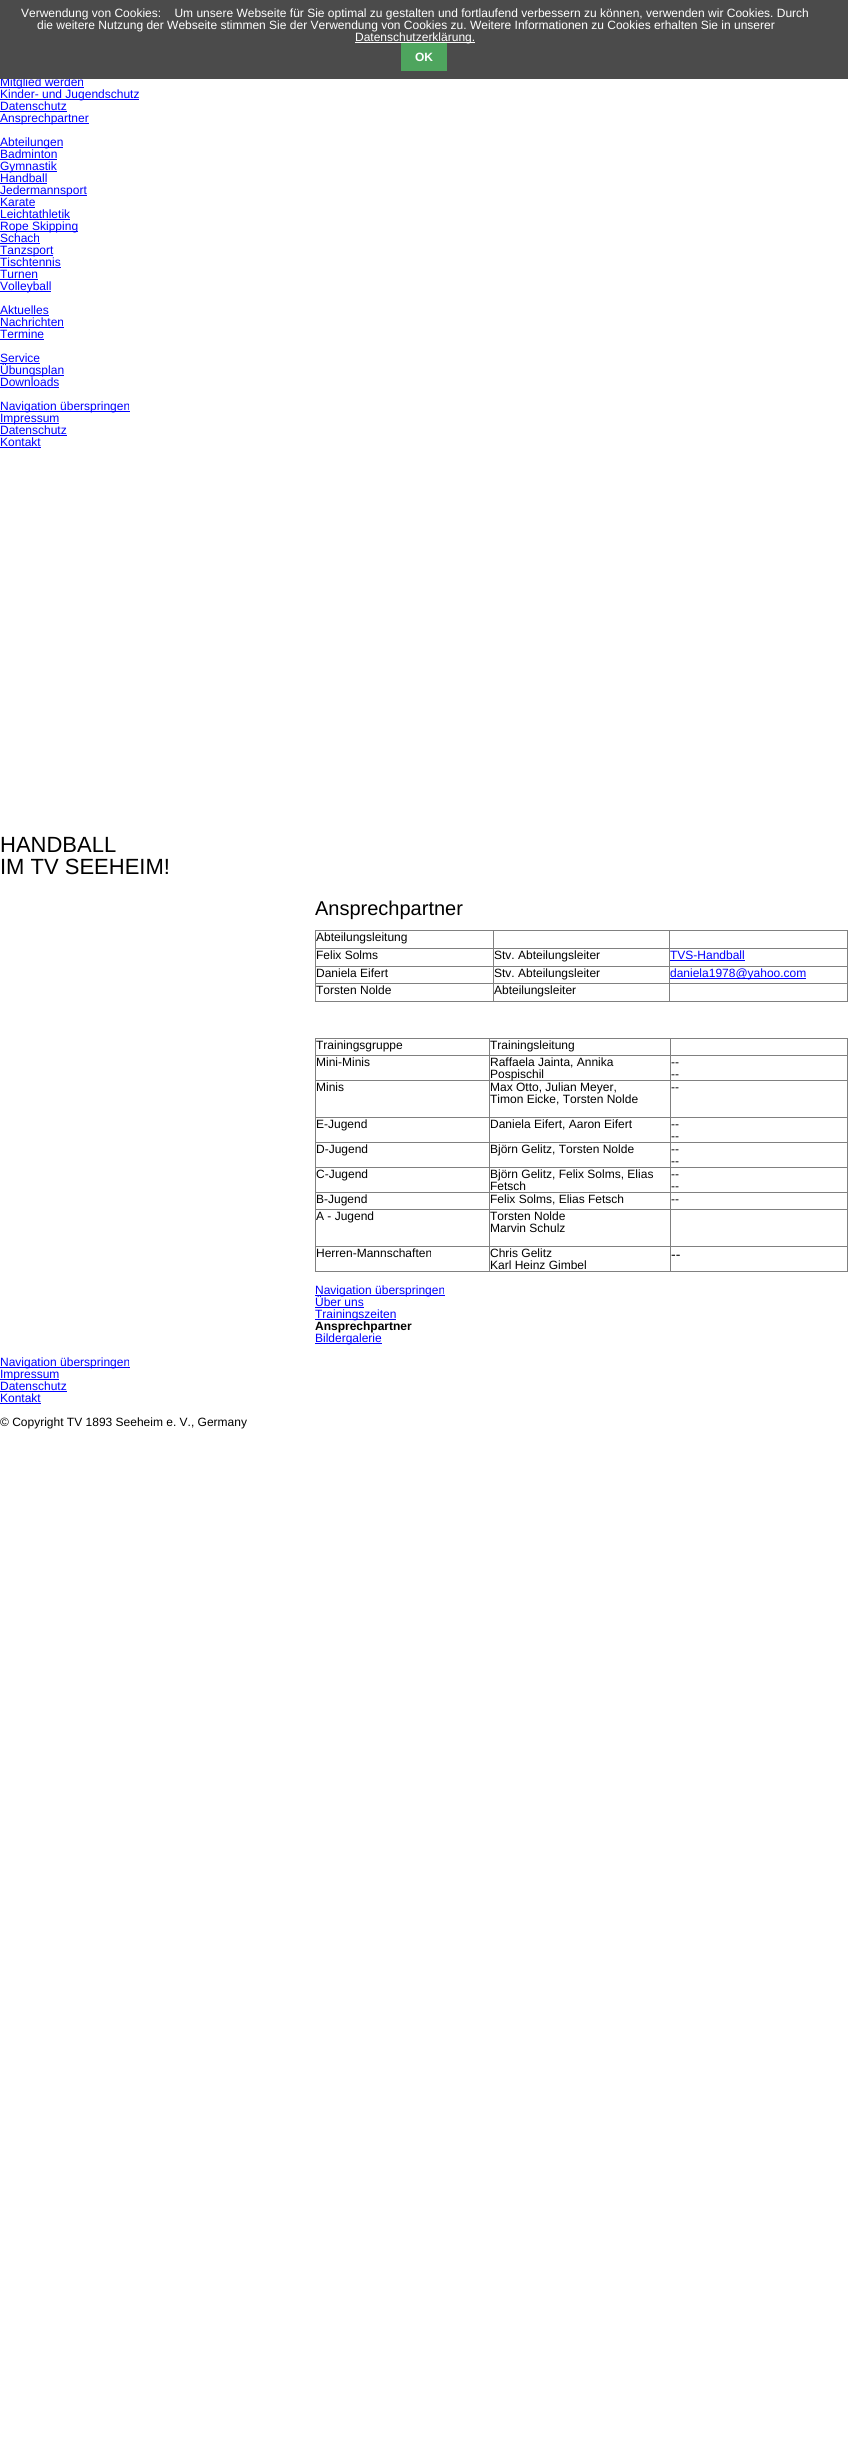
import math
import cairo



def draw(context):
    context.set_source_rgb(1, 1, 1)
    context.paint()
    context.set_source_rgb(0, 0, 1)
    context.rectangle(0, 87, 84, 1)
    context.fill()
    context.rectangle(0, 99, 139, 1)
    context.fill()
    context.rectangle(0, 111, 67, 1)
    context.fill()
    context.rectangle(0, 123, 89, 1)
    context.fill()
    context.rectangle(0, 147, 63, 1)
    context.fill()
    context.rectangle(0, 159, 57, 1)
    context.fill()
    context.rectangle(0, 171, 57, 1)
    context.fill()
    context.rectangle(0, 183, 47, 1)
    context.fill()
    context.rectangle(0, 195, 87, 1)
    context.fill()
    context.rectangle(0, 207, 35, 1)
    context.fill()
    context.rectangle(0, 219, 70, 1)
    context.fill()
    context.rectangle(0, 231, 78, 1)
    context.fill()
    context.rectangle(0, 243, 40, 1)
    context.fill()
    context.rectangle(0, 255, 53, 1)
    context.fill()
    context.rectangle(0, 267, 61, 1)
    context.fill()
    context.rectangle(0, 279, 38, 1)
    context.fill()
    context.rectangle(0, 291, 51, 1)
    context.fill()
    context.rectangle(0, 315, 49, 1)
    context.fill()
    context.rectangle(0, 327, 64, 1)
    context.fill()
    context.rectangle(0, 339, 44, 1)
    context.fill()
    context.rectangle(0, 363, 40, 1)
    context.fill()
    context.rectangle(0, 375, 64, 1)
    context.fill()
    context.rectangle(0, 387, 59, 1)
    context.fill()
    context.rectangle(0, 411, 130, 1)
    context.fill()
    context.rectangle(0, 423, 59, 1)
    context.fill()
    context.rectangle(0, 435, 67, 1)
    context.fill()
    context.rectangle(0, 447, 41, 1)
    context.fill()
    context.set_source_rgb(128 / 255, 128 / 255, 128 / 255)
    context.rectangle(315, 930, 533, 1)
    context.fill()
    context.rectangle(847, 930, 1, 72)
    context.fill()
    context.rectangle(315, 1001, 533, 1)
    context.fill()
    context.rectangle(315, 930, 1, 72)
    context.fill()
    context.rectangle(669, 948, 179, 1)
    context.fill()
    context.rectangle(669, 966, 179, 1)
    context.fill()
    context.rectangle(669, 983, 179, 1)
    context.fill()
    context.rectangle(669, 983, 1, 19)
    context.fill()
    context.rectangle(493, 983, 177, 1)
    context.fill()
    context.rectangle(669, 966, 1, 18)
    context.fill()
    context.rectangle(493, 966, 177, 1)
    context.fill()
    context.rectangle(669, 948, 1, 19)
    context.fill()
    context.rectangle(493, 948, 177, 1)
    context.fill()
    context.rectangle(493, 983, 1, 19)
    context.fill()
    context.rectangle(315, 983, 179, 1)
    context.fill()
    context.rectangle(493, 966, 1, 18)
    context.fill()
    context.rectangle(315, 966, 179, 1)
    context.fill()
    context.rectangle(493, 948, 1, 19)
    context.fill()
    context.rectangle(315, 948, 179, 1)
    context.fill()
    context.rectangle(493, 930, 1, 19)
    context.fill()
    context.rectangle(669, 930, 1, 19)
    context.fill()
    context.set_source_rgb(0, 0, 1)
    context.rectangle(670, 960, 75, 1)
    context.fill()
    context.rectangle(670, 978, 136, 1)
    context.fill()
    context.set_source_rgb(128 / 255, 128 / 255, 128 / 255)
    context.rectangle(315, 1038, 533, 1)
    context.fill()
    context.rectangle(847, 1038, 1, 234)
    context.fill()
    context.rectangle(315, 1271, 533, 1)
    context.fill()
    context.rectangle(315, 1038, 1, 234)
    context.fill()
    context.rectangle(670, 1055, 178, 1)
    context.fill()
    context.rectangle(670, 1080, 178, 1)
    context.fill()
    context.rectangle(670, 1117, 178, 1)
    context.fill()
    context.rectangle(670, 1142, 178, 1)
    context.fill()
    context.rectangle(670, 1167, 178, 1)
    context.fill()
    context.rectangle(670, 1192, 178, 1)
    context.fill()
    context.rectangle(670, 1209, 178, 1)
    context.fill()
    context.rectangle(670, 1246, 178, 1)
    context.fill()
    context.rectangle(670, 1246, 1, 26)
    context.fill()
    context.rectangle(489, 1246, 182, 1)
    context.fill()
    context.rectangle(670, 1209, 1, 38)
    context.fill()
    context.rectangle(489, 1209, 182, 1)
    context.fill()
    context.rectangle(670, 1192, 1, 18)
    context.fill()
    context.rectangle(489, 1192, 182, 1)
    context.fill()
    context.rectangle(670, 1167, 1, 26)
    context.fill()
    context.rectangle(489, 1167, 182, 1)
    context.fill()
    context.rectangle(670, 1142, 1, 26)
    context.fill()
    context.rectangle(489, 1142, 182, 1)
    context.fill()
    context.rectangle(670, 1117, 1, 26)
    context.fill()
    context.rectangle(489, 1117, 182, 1)
    context.fill()
    context.rectangle(670, 1080, 1, 38)
    context.fill()
    context.rectangle(489, 1080, 182, 1)
    context.fill()
    context.rectangle(670, 1055, 1, 26)
    context.fill()
    context.rectangle(489, 1055, 182, 1)
    context.fill()
    context.rectangle(489, 1246, 1, 26)
    context.fill()
    context.rectangle(315, 1246, 175, 1)
    context.fill()
    context.rectangle(489, 1209, 1, 38)
    context.fill()
    context.rectangle(315, 1209, 175, 1)
    context.fill()
    context.rectangle(489, 1192, 1, 18)
    context.fill()
    context.rectangle(315, 1192, 175, 1)
    context.fill()
    context.rectangle(489, 1167, 1, 26)
    context.fill()
    context.rectangle(315, 1167, 175, 1)
    context.fill()
    context.rectangle(489, 1142, 1, 26)
    context.fill()
    context.rectangle(315, 1142, 175, 1)
    context.fill()
    context.rectangle(489, 1117, 1, 26)
    context.fill()
    context.rectangle(315, 1117, 175, 1)
    context.fill()
    context.rectangle(489, 1080, 1, 38)
    context.fill()
    context.rectangle(315, 1080, 175, 1)
    context.fill()
    context.rectangle(489, 1055, 1, 26)
    context.fill()
    context.rectangle(315, 1055, 175, 1)
    context.fill()
    context.rectangle(489, 1038, 1, 18)
    context.fill()
    context.rectangle(670, 1038, 1, 18)
    context.fill()
    context.set_source_rgb(0, 0, 1)
    context.rectangle(315, 1295, 130, 1)
    context.fill()
    context.rectangle(315, 1307, 49, 1)
    context.fill()
    context.rectangle(315, 1319, 81, 1)
    context.fill()
    context.rectangle(315, 1343, 67, 1)
    context.fill()
    context.rectangle(0, 1367, 130, 1)
    context.fill()
    context.rectangle(0, 1379, 59, 1)
    context.fill()
    context.rectangle(0, 1391, 67, 1)
    context.fill()
    context.rectangle(0, 1403, 41, 1)
    context.fill()
    context.select_font_face("Liberation Sans")
    context.set_font_size(12)
    context.move_to(0, 86)
    context.show_text("Mitglied werden")
    context.set_source_rgb(75 / 255, 75 / 255, 75 / 255)
    context.rectangle(0, 0, 848, 79)
    context.fill()
    context.set_source_rgb(1, 1, 1)
    context.rectangle(355, 42, 120, 1)
    context.fill()
    context.move_to(355, 41)
    context.show_text("Datenschutzerklärung.")
    context.set_source_rgb(78 / 255, 165 / 255, 94 / 255)
    context.rectangle(401, 43, 46, 28)
    context.fill()
    context.select_font_face("Liberation Sans", cairo.FontSlant.NORMAL, cairo.FontWeight.BOLD)
    context.set_source_rgb(1, 1, 1)
    context.move_to(415, 61)
    context.show_text("OK")
    context.select_font_face("Liberation Sans")
    context.move_to(37, 29)
    context.show_text("die weitere Nutzung der Webseite stimmen Sie der Verwendung von Cookies zu. Weitere Informationen zu Cookies erhalten Sie in unserer")
    context.move_to(21, 17)
    context.show_text("Verwendung von Cookies:    Um unsere Webseite für Sie optimal zu gestalten und fortlaufend verbessern zu können, verwenden wir Cookies. Durch")
    context.set_source_rgb(0, 0, 1)
    context.move_to(0, 98)
    context.show_text("Kinder- und Jugendschutz")
    context.move_to(0, 110)
    context.show_text("Datenschutz")
    context.move_to(0, 122)
    context.show_text("Ansprechpartner")
    context.move_to(0, 146)
    context.show_text("Abteilungen")
    context.move_to(0, 158)
    context.show_text("Badminton")
    context.move_to(0, 170)
    context.show_text("Gymnastik")
    context.move_to(0, 182)
    context.show_text("Handball")
    context.move_to(0, 194)
    context.show_text("Jedermannsport")
    context.move_to(0, 206)
    context.show_text("Karate")
    context.move_to(0, 218)
    context.show_text("Leichtathletik")
    context.move_to(0, 230)
    context.show_text("Rope Skipping")
    context.move_to(0, 242)
    context.show_text("Schach")
    context.move_to(0, 254)
    context.show_text("Tanzsport")
    context.move_to(0, 266)
    context.show_text("Tischtennis")
    context.move_to(0, 278)
    context.show_text("Turnen")
    context.move_to(0, 290)
    context.show_text("Volleyball")
    context.move_to(0, 314)
    context.show_text("Aktuelles")
    context.move_to(0, 326)
    context.show_text("Nachrichten")
    context.move_to(0, 338)
    context.show_text("Termine")
    context.move_to(0, 362)
    context.show_text("Service")
    context.move_to(0, 374)
    context.show_text("Übungsplan")
    context.move_to(0, 386)
    context.show_text("Downloads")
    context.move_to(0, 410)
    context.show_text("Navigation überspringen")
    context.move_to(0, 422)
    context.show_text("Impressum")
    context.move_to(0, 434)
    context.show_text("Datenschutz")
    context.move_to(0, 446)
    context.show_text("Kontakt")
    context.set_font_size(22)
    context.set_source_rgb(0, 0, 0)
    context.move_to(0, 852)
    context.show_text("HANDBALL")
    context.move_to(0, 874)
    context.show_text("IM TV SEEHEIM!")
    context.set_font_size(20)
    context.move_to(315, 915)
    context.show_text("Ansprechpartner")
    context.set_font_size(12)
    context.move_to(316, 941)
    context.show_text("Abteilungsleitung")
    context.move_to(316, 959)
    context.show_text("Felix Solms")
    context.move_to(494, 959)
    context.show_text("Stv. Abteilungsleiter")
    context.set_source_rgb(0, 0, 1)
    context.move_to(670, 959)
    context.show_text("TVS-Handball")
    context.set_source_rgb(0, 0, 0)
    context.move_to(316, 977)
    context.show_text("Daniela Eifert")
    context.move_to(494, 977)
    context.show_text("Stv. Abteilungsleiter")
    context.set_source_rgb(0, 0, 1)
    context.move_to(670, 977)
    context.show_text("daniela1978@yahoo.com")
    context.set_source_rgb(0, 0, 0)
    context.move_to(316, 994)
    context.show_text("Torsten Nolde")
    context.move_to(494, 994)
    context.show_text("Abteilungsleiter")
    context.move_to(316, 1049)
    context.show_text("Trainingsgruppe")
    context.move_to(490, 1049)
    context.show_text("Trainingsleitung")
    context.move_to(316, 1066)
    context.show_text("Mini-Minis")
    context.move_to(490, 1066)
    context.show_text("Raffaela Jainta, Annika")
    context.move_to(490, 1078)
    context.show_text("Pospischil")
    context.move_to(671, 1066)
    context.show_text("--")
    context.move_to(671, 1078)
    context.show_text("--")
    context.move_to(316, 1091)
    context.show_text("Minis")
    context.move_to(490, 1091)
    context.show_text("Max Otto, Julian Meyer,")
    context.move_to(490, 1103)
    context.show_text("Timon Eicke, Torsten Nolde")
    context.move_to(671, 1091)
    context.show_text("--")
    context.move_to(316, 1128)
    context.show_text("E-Jugend")
    context.move_to(490, 1128)
    context.show_text("Daniela Eifert, Aaron Eifert")
    context.move_to(671, 1128)
    context.show_text("--")
    context.move_to(671, 1140)
    context.show_text("--")
    context.move_to(316, 1153)
    context.show_text("D-Jugend")
    context.move_to(490, 1153)
    context.show_text("Björn Gelitz, Torsten Nolde")
    context.move_to(671, 1153)
    context.show_text("--")
    context.move_to(671, 1165)
    context.show_text("--")
    context.move_to(316, 1178)
    context.show_text("C-Jugend")
    context.move_to(490, 1178)
    context.show_text("Björn Gelitz, Felix Solms, Elias")
    context.move_to(490, 1190)
    context.show_text("Fetsch")
    context.move_to(671, 1178)
    context.show_text("--")
    context.move_to(671, 1190)
    context.show_text("--")
    context.move_to(316, 1203)
    context.show_text("B-Jugend")
    context.move_to(490, 1203)
    context.show_text("Felix Solms, Elias Fetsch")
    context.move_to(671, 1203)
    context.show_text("--")
    context.move_to(316, 1220)
    context.show_text("A - Jugend")
    context.move_to(490, 1220)
    context.show_text("Torsten Nolde")
    context.move_to(490, 1232)
    context.show_text("Marvin Schulz")
    context.move_to(316, 1257)
    context.show_text("Herren-Mannschaften")
    context.move_to(490, 1257)
    context.show_text("Chris Gelitz")
    context.move_to(490, 1269)
    context.show_text("Karl Heinz Gimbel")
    context.set_font_size(14)
    context.move_to(671, 1259)
    context.show_text("--")
    context.set_font_size(12)
    context.set_source_rgb(0, 0, 1)
    context.move_to(315, 1294)
    context.show_text("Navigation überspringen")
    context.move_to(315, 1306)
    context.show_text("Über uns")
    context.move_to(315, 1318)
    context.show_text("Trainingszeiten")
    context.select_font_face("Liberation Sans", cairo.FontSlant.NORMAL, cairo.FontWeight.BOLD)
    context.set_source_rgb(0, 0, 0)
    context.move_to(315, 1330)
    context.show_text("Ansprechpartner")
    context.select_font_face("Liberation Sans")
    context.set_source_rgb(0, 0, 1)
    context.move_to(315, 1342)
    context.show_text("Bildergalerie")
    context.move_to(0, 1366)
    context.show_text("Navigation überspringen")
    context.move_to(0, 1378)
    context.show_text("Impressum")
    context.move_to(0, 1390)
    context.show_text("Datenschutz")
    context.move_to(0, 1402)
    context.show_text("Kontakt")
    context.set_source_rgb(0, 0, 0)
    context.move_to(0, 1426)
    context.show_text("© Copyright TV 1893 Seeheim e. V., Germany")


surface = cairo.ImageSurface(cairo.Format.RGB24, 848, 2451)
context = cairo.Context(surface)
options = cairo.FontOptions()
options.set_hint_metrics(cairo.HintMetrics.OFF)
options.set_hint_style(cairo.HintStyle.NONE)
context.set_font_options(options)
context.set_miter_limit(4)
draw(context)
surface.write_to_png("out.png")
